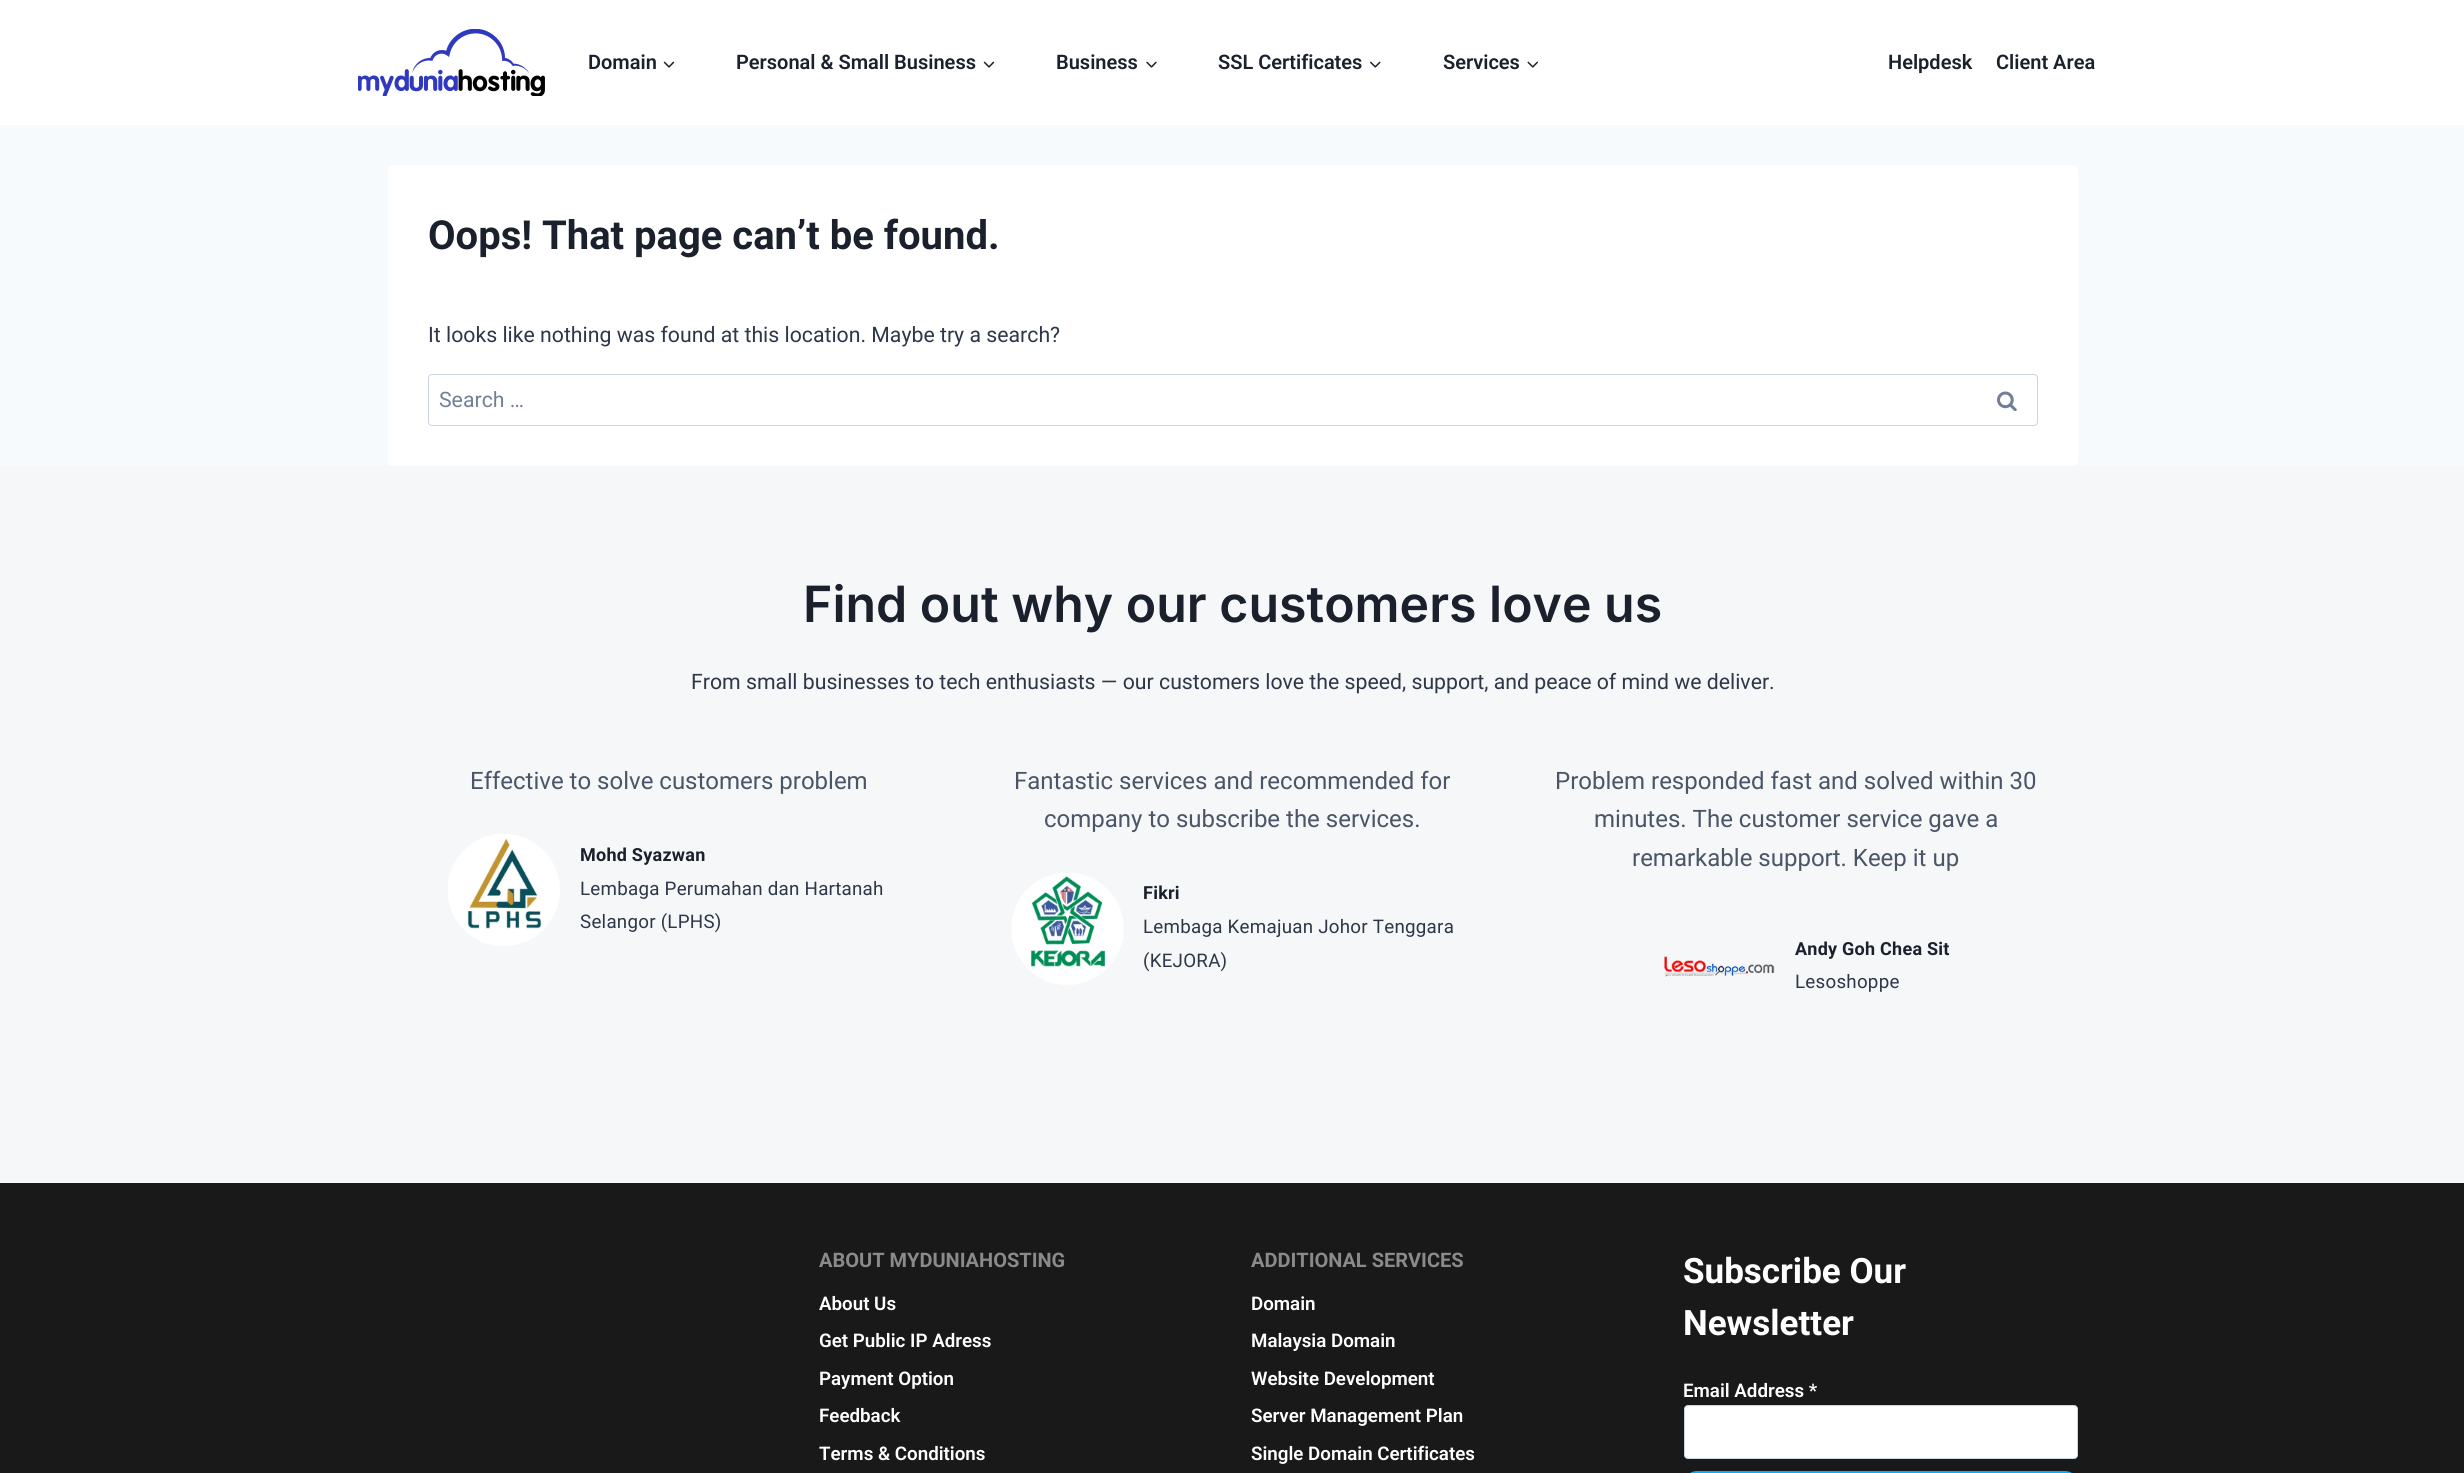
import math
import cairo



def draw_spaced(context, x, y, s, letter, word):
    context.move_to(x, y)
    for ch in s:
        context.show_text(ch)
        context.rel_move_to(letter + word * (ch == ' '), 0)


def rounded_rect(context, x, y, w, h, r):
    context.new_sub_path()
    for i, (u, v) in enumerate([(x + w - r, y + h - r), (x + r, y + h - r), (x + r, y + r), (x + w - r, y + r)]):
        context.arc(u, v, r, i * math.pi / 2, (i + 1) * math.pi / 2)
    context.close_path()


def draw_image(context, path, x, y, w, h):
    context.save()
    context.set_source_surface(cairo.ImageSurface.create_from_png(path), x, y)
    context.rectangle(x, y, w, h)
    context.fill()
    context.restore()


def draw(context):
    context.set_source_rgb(247 / 255, 250 / 255, 252 / 255)
    context.paint()
    context.set_source_rgb(1, 1, 1)
    context.rectangle(0, 0, 2464, 125)
    context.fill()
    draw_image(context, "images/1.png", 358, 29, 187, 67)
    draw_image(context, "images/2.png", 663, 61, 12, 7)
    draw_image(context, "images/2.png", 983, 61, 12, 7)
    draw_image(context, "images/3.png", 1146, 61, 11, 7)
    draw_image(context, "images/4.png", 1370, 61, 11, 7)
    draw_image(context, "images/5.png", 1527, 61, 11, 7)
    rounded_rect(context, 388, 165, 1690, 301, 5)
    context.fill()
    rounded_rect(context, 428.5, 374.5, 1609, 51, 3.5)
    context.set_source_rgb(203 / 255, 213 / 255, 224 / 255)
    context.set_line_width(1)
    context.stroke()
    draw_image(context, "images/6.png", 1997, 391, 20, 20)
    context.set_source_rgb(245 / 255, 247 / 255, 248 / 255)
    context.rectangle(0, 466, 2464, 717)
    context.fill()
    draw_image(context, "images/7.png", 448, 834, 112, 112)
    draw_image(context, "images/8.png", 1011, 873, 113, 112)
    draw_image(context, "images/9.png", 1664, 956, 111, 21)
    context.set_source_rgb(25 / 255, 25 / 255, 25 / 255)
    context.rectangle(0, 1183, 2464, 290)
    context.fill()
    context.set_source_rgb(1, 1, 1)
    rounded_rect(context, 1684.5, 1405.5, 393, 53, 3.5)
    context.fill_preserve()
    context.set_source_rgb(203 / 255, 213 / 255, 224 / 255)
    context.stroke()
    context.set_source_rgb(0, 176 / 255, 1)
    rounded_rect(context, 1684, 1471, 394, 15, 13)
    context.fill()
    context.select_font_face("Roboto SemiBold")
    context.set_font_size(20)
    context.set_source_rgb(26 / 255, 32 / 255, 44 / 255)
    context.move_to(588, 69)
    context.show_text("Domain")
    context.move_to(736, 69)
    context.show_text("Personal & Small Business")
    context.move_to(1056, 69)
    context.show_text("Business")
    context.move_to(1218, 69)
    context.show_text("SSL Certificates")
    context.move_to(1443, 69)
    context.show_text("Services")
    context.move_to(1888, 69)
    context.show_text("Helpdesk")
    context.move_to(1996, 69)
    context.show_text("Client Area")
    context.select_font_face("Roboto", cairo.FontSlant.NORMAL, cairo.FontWeight.BOLD)
    context.set_font_size(40)
    context.move_to(428, 249)
    context.show_text("Oops! That page can’t be found.")
    context.select_font_face("Roboto")
    context.set_font_size(21.25)
    context.set_source_rgb(45 / 255, 55 / 255, 72 / 255)
    context.move_to(428, 342)
    context.show_text("It looks like nothing was found at this location. Maybe try a search?")
    context.set_source_rgb(113 / 255, 128 / 255, 150 / 255)
    context.move_to(439, 407)
    context.show_text("Search …")
    context.select_font_face("Inter SemiBold")
    context.set_font_size(50)
    context.set_source_rgb(26 / 255, 32 / 255, 44 / 255)
    context.move_to(803, 622)
    context.show_text("Find out why our customers love us")
    context.select_font_face("Roboto")
    context.set_font_size(21.25)
    context.set_source_rgb(45 / 255, 55 / 255, 72 / 255)
    context.move_to(691, 689)
    context.show_text("From small businesses to tech enthusiasts — our customers love the speed, support, and peace of mind we deliver.")
    context.set_font_size(24)
    context.set_source_rgb(74 / 255, 85 / 255, 104 / 255)
    context.move_to(470, 789)
    context.show_text("Effective to solve customers problem")
    context.select_font_face("Roboto", cairo.FontSlant.NORMAL, cairo.FontWeight.BOLD)
    context.set_font_size(18)
    context.set_source_rgb(26 / 255, 32 / 255, 44 / 255)
    draw_spaced(context, 580, 861, "Mohd Syazwan", 0.25, 0)
    context.select_font_face("Roboto")
    context.set_font_size(18.75)
    context.set_source_rgb(45 / 255, 55 / 255, 72 / 255)
    draw_spaced(context, 580, 895, "Lembaga Perumahan dan Hartanah", 0.25, 0)
    draw_spaced(context, 580, 928, "Selangor (LPHS)", 0.25, 0)
    context.set_font_size(24)
    context.set_source_rgb(74 / 255, 85 / 255, 104 / 255)
    context.move_to(1014, 789)
    context.show_text("Fantastic services and recommended for")
    context.move_to(1044, 827)
    context.show_text("company to subscribe the services.")
    context.select_font_face("Roboto", cairo.FontSlant.NORMAL, cairo.FontWeight.BOLD)
    context.set_font_size(18)
    context.set_source_rgb(26 / 255, 32 / 255, 44 / 255)
    draw_spaced(context, 1143, 899, "Fikri", 0.25, 0)
    context.select_font_face("Roboto")
    context.set_font_size(18.75)
    context.set_source_rgb(45 / 255, 55 / 255, 72 / 255)
    draw_spaced(context, 1143, 933, "Lembaga Kemajuan Johor Tenggara", 0.25, 0)
    draw_spaced(context, 1143, 967, "(KEJORA)", 0.25, 0)
    context.set_font_size(24)
    context.set_source_rgb(74 / 255, 85 / 255, 104 / 255)
    context.move_to(1555, 789)
    context.show_text("Problem responded fast and solved within 30")
    context.move_to(1594, 827)
    context.show_text("minutes. The customer service gave a")
    context.move_to(1632, 866)
    context.show_text("remarkable support. Keep it up")
    context.select_font_face("Roboto", cairo.FontSlant.NORMAL, cairo.FontWeight.BOLD)
    context.set_font_size(18)
    context.set_source_rgb(26 / 255, 32 / 255, 44 / 255)
    draw_spaced(context, 1795, 955, "Andy Goh Chea Sit", 0.25, 0)
    context.select_font_face("Roboto")
    context.set_font_size(18.75)
    context.set_source_rgb(45 / 255, 55 / 255, 72 / 255)
    draw_spaced(context, 1795, 988, "Lesoshoppe", 0.25, 0)
    context.select_font_face("Roboto", cairo.FontSlant.NORMAL, cairo.FontWeight.BOLD)
    context.set_font_size(20)
    context.set_source_rgb(138 / 255, 138 / 255, 138 / 255)
    context.move_to(819, 1267)
    context.show_text("ABOUT MYDUNIAHOSTING")
    context.select_font_face("Roboto SemiBold")
    context.set_font_size(18.75)
    context.set_source_rgb(1, 1, 1)
    context.move_to(819, 1310)
    context.show_text("About Us")
    context.move_to(819, 1347)
    context.show_text("Get Public IP Adress")
    context.move_to(819, 1385)
    context.show_text("Payment Option")
    context.move_to(819, 1422)
    context.show_text("Feedback")
    context.move_to(819, 1460)
    context.show_text("Terms & Conditions")
    context.select_font_face("Roboto", cairo.FontSlant.NORMAL, cairo.FontWeight.BOLD)
    context.set_font_size(20)
    context.set_source_rgb(138 / 255, 138 / 255, 138 / 255)
    context.move_to(1251, 1267)
    context.show_text("ADDITIONAL SERVICES")
    context.select_font_face("Roboto SemiBold")
    context.set_font_size(18.75)
    context.set_source_rgb(1, 1, 1)
    context.move_to(1251, 1310)
    context.show_text("Domain")
    context.move_to(1251, 1347)
    context.show_text("Malaysia Domain")
    context.move_to(1251, 1385)
    context.show_text("Website Development")
    context.move_to(1251, 1422)
    context.show_text("Server Management Plan")
    context.move_to(1251, 1460)
    context.show_text("Single Domain Certificates")
    context.select_font_face("Roboto", cairo.FontSlant.NORMAL, cairo.FontWeight.BOLD)
    context.set_font_size(35)
    context.move_to(1683, 1283)
    context.show_text("Subscribe Our")
    context.move_to(1683, 1335)
    context.show_text("Newsletter")
    context.select_font_face("Roboto SemiBold")
    context.set_font_size(18.75)
    context.move_to(1683, 1397)
    context.show_text("Email Address *")


surface = cairo.ImageSurface(cairo.Format.RGB24, 2464, 1473)
context = cairo.Context(surface)
options = cairo.FontOptions()
options.set_hint_metrics(cairo.HintMetrics.OFF)
options.set_hint_style(cairo.HintStyle.NONE)
context.set_font_options(options)
context.set_miter_limit(4)
draw(context)
surface.write_to_png("out.png")
